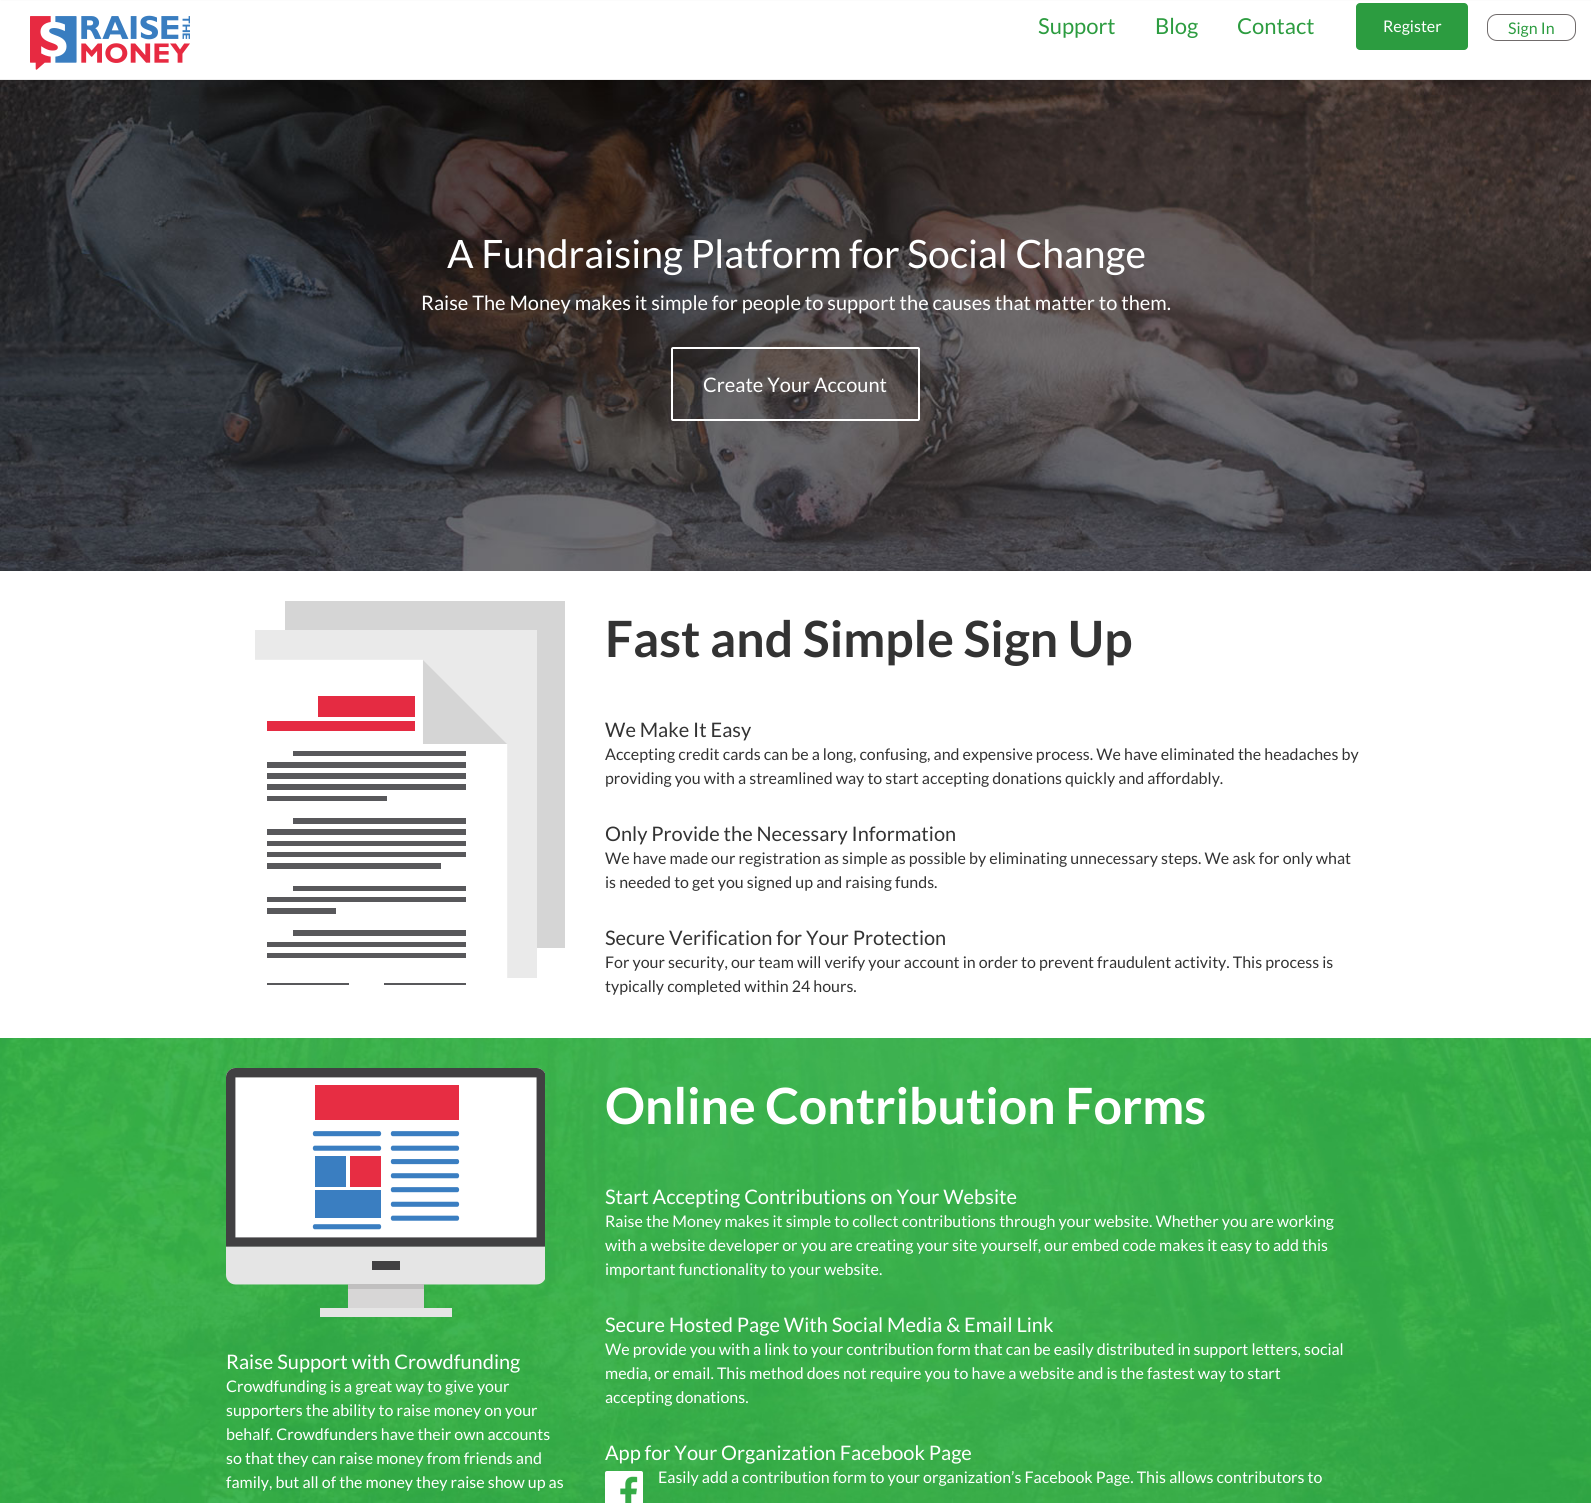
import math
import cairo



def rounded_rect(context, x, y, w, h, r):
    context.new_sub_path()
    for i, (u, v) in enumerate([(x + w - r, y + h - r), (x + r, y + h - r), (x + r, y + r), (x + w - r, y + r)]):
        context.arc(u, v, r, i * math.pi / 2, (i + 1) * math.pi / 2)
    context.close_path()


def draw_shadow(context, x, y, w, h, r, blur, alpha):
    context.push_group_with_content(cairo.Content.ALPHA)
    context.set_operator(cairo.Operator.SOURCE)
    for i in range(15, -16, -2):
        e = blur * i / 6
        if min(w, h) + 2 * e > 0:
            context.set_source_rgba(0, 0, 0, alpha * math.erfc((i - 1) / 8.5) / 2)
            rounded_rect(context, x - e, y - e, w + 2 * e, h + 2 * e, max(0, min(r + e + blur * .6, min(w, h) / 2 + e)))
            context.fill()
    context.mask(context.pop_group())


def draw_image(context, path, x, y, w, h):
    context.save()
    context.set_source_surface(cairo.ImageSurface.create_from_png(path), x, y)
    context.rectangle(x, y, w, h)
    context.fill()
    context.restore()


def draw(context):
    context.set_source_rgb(1, 1, 1)
    context.paint()
    draw_image(context, "images/1.png", 0, 1038, 1591, 465)
    draw_image(context, "images/3.png", 0, 80, 1591, 491)
    context.set_source_rgb(0, 0, 0)
    draw_shadow(context, 1, 2, 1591, 80, 0, 1, 0.1)
    context.set_source_rgb(1, 1, 1)
    context.rectangle(0, 1, 1591, 78)
    context.fill()
    context.set_source_rgb(238 / 255, 238 / 255, 238 / 255)
    context.rectangle(0, 79, 1591, 1)
    context.fill()
    draw_image(context, "images/2.png", 30, 15, 160, 55)
    context.set_source_rgb(44 / 255, 156 / 255, 64 / 255)
    rounded_rect(context, 1356, 3, 112, 47, 4)
    context.fill()
    rounded_rect(context, 1487.5, 14.5, 88, 26, 9.5)
    context.set_source_rgb(112 / 255, 107 / 255, 107 / 255)
    context.set_line_width(1)
    context.stroke()
    rounded_rect(context, 672, 348, 247, 72, 1)
    context.set_source_rgb(1, 1, 1)
    context.set_line_width(2)
    context.stroke()
    draw_image(context, "images/4.png", 255, 601, 310, 384)
    draw_image(context, "images/5.png", 226, 1068, 319, 249)
    draw_image(context, "images/6.png", 605, 1471, 38, 32)
    context.select_font_face("Lato")
    context.set_font_size(22)
    context.set_source_rgb(44 / 255, 156 / 255, 64 / 255)
    context.move_to(1038, 34)
    context.show_text("Support")
    context.move_to(1155, 34)
    context.show_text("Blog")
    context.move_to(1237, 34)
    context.show_text("Contact")
    context.set_font_size(16)
    context.set_source_rgb(1, 1, 1)
    context.move_to(1383, 32)
    context.show_text("Register")
    context.set_source_rgb(44 / 255, 156 / 255, 64 / 255)
    context.move_to(1508, 34)
    context.show_text("Sign In")
    context.set_font_size(39.1)
    context.set_source_rgb(1, 1, 1)
    context.move_to(447, 268)
    context.show_text("A Fundraising Platform for Social Change")
    context.set_font_size(20)
    context.move_to(421, 310)
    context.show_text("Raise The Money makes it simple for people to support the causes that matter to them.")
    context.move_to(703, 392)
    context.show_text("Create Your Account")
    context.select_font_face("Lato", cairo.FontSlant.NORMAL, cairo.FontWeight.BOLD)
    context.set_font_size(50)
    context.set_source_rgb(51 / 255, 51 / 255, 51 / 255)
    context.move_to(605, 657)
    context.show_text("Fast and Simple Sign Up")
    context.select_font_face("Lato")
    context.set_font_size(20)
    context.move_to(605, 737)
    context.show_text("We Make It Easy")
    context.set_font_size(16)
    context.move_to(605, 760)
    context.show_text("Accepting credit cards can be a long, confusing, and expensive process. We have eliminated the headaches by")
    context.move_to(605, 784)
    context.show_text("providing you with a streamlined way to start accepting donations quickly and affordably.")
    context.set_font_size(20)
    context.move_to(605, 841)
    context.show_text("Only Provide the Necessary Information")
    context.set_font_size(16)
    context.move_to(605, 864)
    context.show_text("We have made our registration as simple as possible by eliminating unnecessary steps. We ask for only what")
    context.move_to(605, 888)
    context.show_text("is needed to get you signed up and raising funds.")
    context.set_font_size(20)
    context.move_to(605, 945)
    context.show_text("Secure Verification for Your Protection")
    context.set_font_size(16)
    context.move_to(605, 968)
    context.show_text("For your security, our team will verify your account in order to prevent fraudulent activity. This process is")
    context.move_to(605, 992)
    context.show_text("typically completed within 24 hours.")
    context.set_font_size(20)
    context.set_source_rgb(1, 1, 1)
    context.move_to(226, 1369)
    context.show_text("Raise Support with Crowdfunding")
    context.set_font_size(16)
    context.move_to(226, 1392)
    context.show_text("Crowdfunding is a great way to give your")
    context.move_to(226, 1416)
    context.show_text("supporters the ability to raise money on your")
    context.move_to(226, 1440)
    context.show_text("behalf. Crowdfunders have their own accounts")
    context.move_to(226, 1464)
    context.show_text("so that they can raise money from friends and")
    context.move_to(226, 1488)
    context.show_text("family, but all of the money they raise show up as")
    context.select_font_face("Lato", cairo.FontSlant.NORMAL, cairo.FontWeight.BOLD)
    context.set_font_size(50)
    context.move_to(605, 1124)
    context.show_text("Online Contribution Forms")
    context.select_font_face("Lato")
    context.set_font_size(20)
    context.move_to(605, 1204)
    context.show_text("Start Accepting Contributions on Your Website")
    context.set_font_size(16)
    context.move_to(605, 1227)
    context.show_text("Raise the Money makes it simple to collect contributions through your website. Whether you are working")
    context.move_to(605, 1251)
    context.show_text("with a website developer or you are creating your site yourself, our embed code makes it easy to add this")
    context.move_to(605, 1275)
    context.show_text("important functionality to your website.")
    context.set_font_size(20)
    context.move_to(605, 1332)
    context.show_text("Secure Hosted Page With Social Media & Email Link")
    context.set_font_size(16)
    context.move_to(605, 1355)
    context.show_text("We provide you with a link to your contribution form that can be easily distributed in support letters, social")
    context.move_to(605, 1379)
    context.show_text("media, or email. This method does not require you to have a website and is the fastest way to start")
    context.move_to(605, 1403)
    context.show_text("accepting donations.")
    context.set_font_size(20)
    context.move_to(605, 1460)
    context.show_text("App for Your Organization Facebook Page")
    context.set_font_size(16)
    context.move_to(658, 1483)
    context.show_text("Easily add a contribution form to your organization’s Facebook Page. This allows contributors to")


surface = cairo.ImageSurface(cairo.Format.RGB24, 1591, 1503)
context = cairo.Context(surface)
options = cairo.FontOptions()
options.set_hint_metrics(cairo.HintMetrics.OFF)
options.set_hint_style(cairo.HintStyle.NONE)
context.set_font_options(options)
context.set_miter_limit(4)
draw(context)
surface.write_to_png("out.png")
